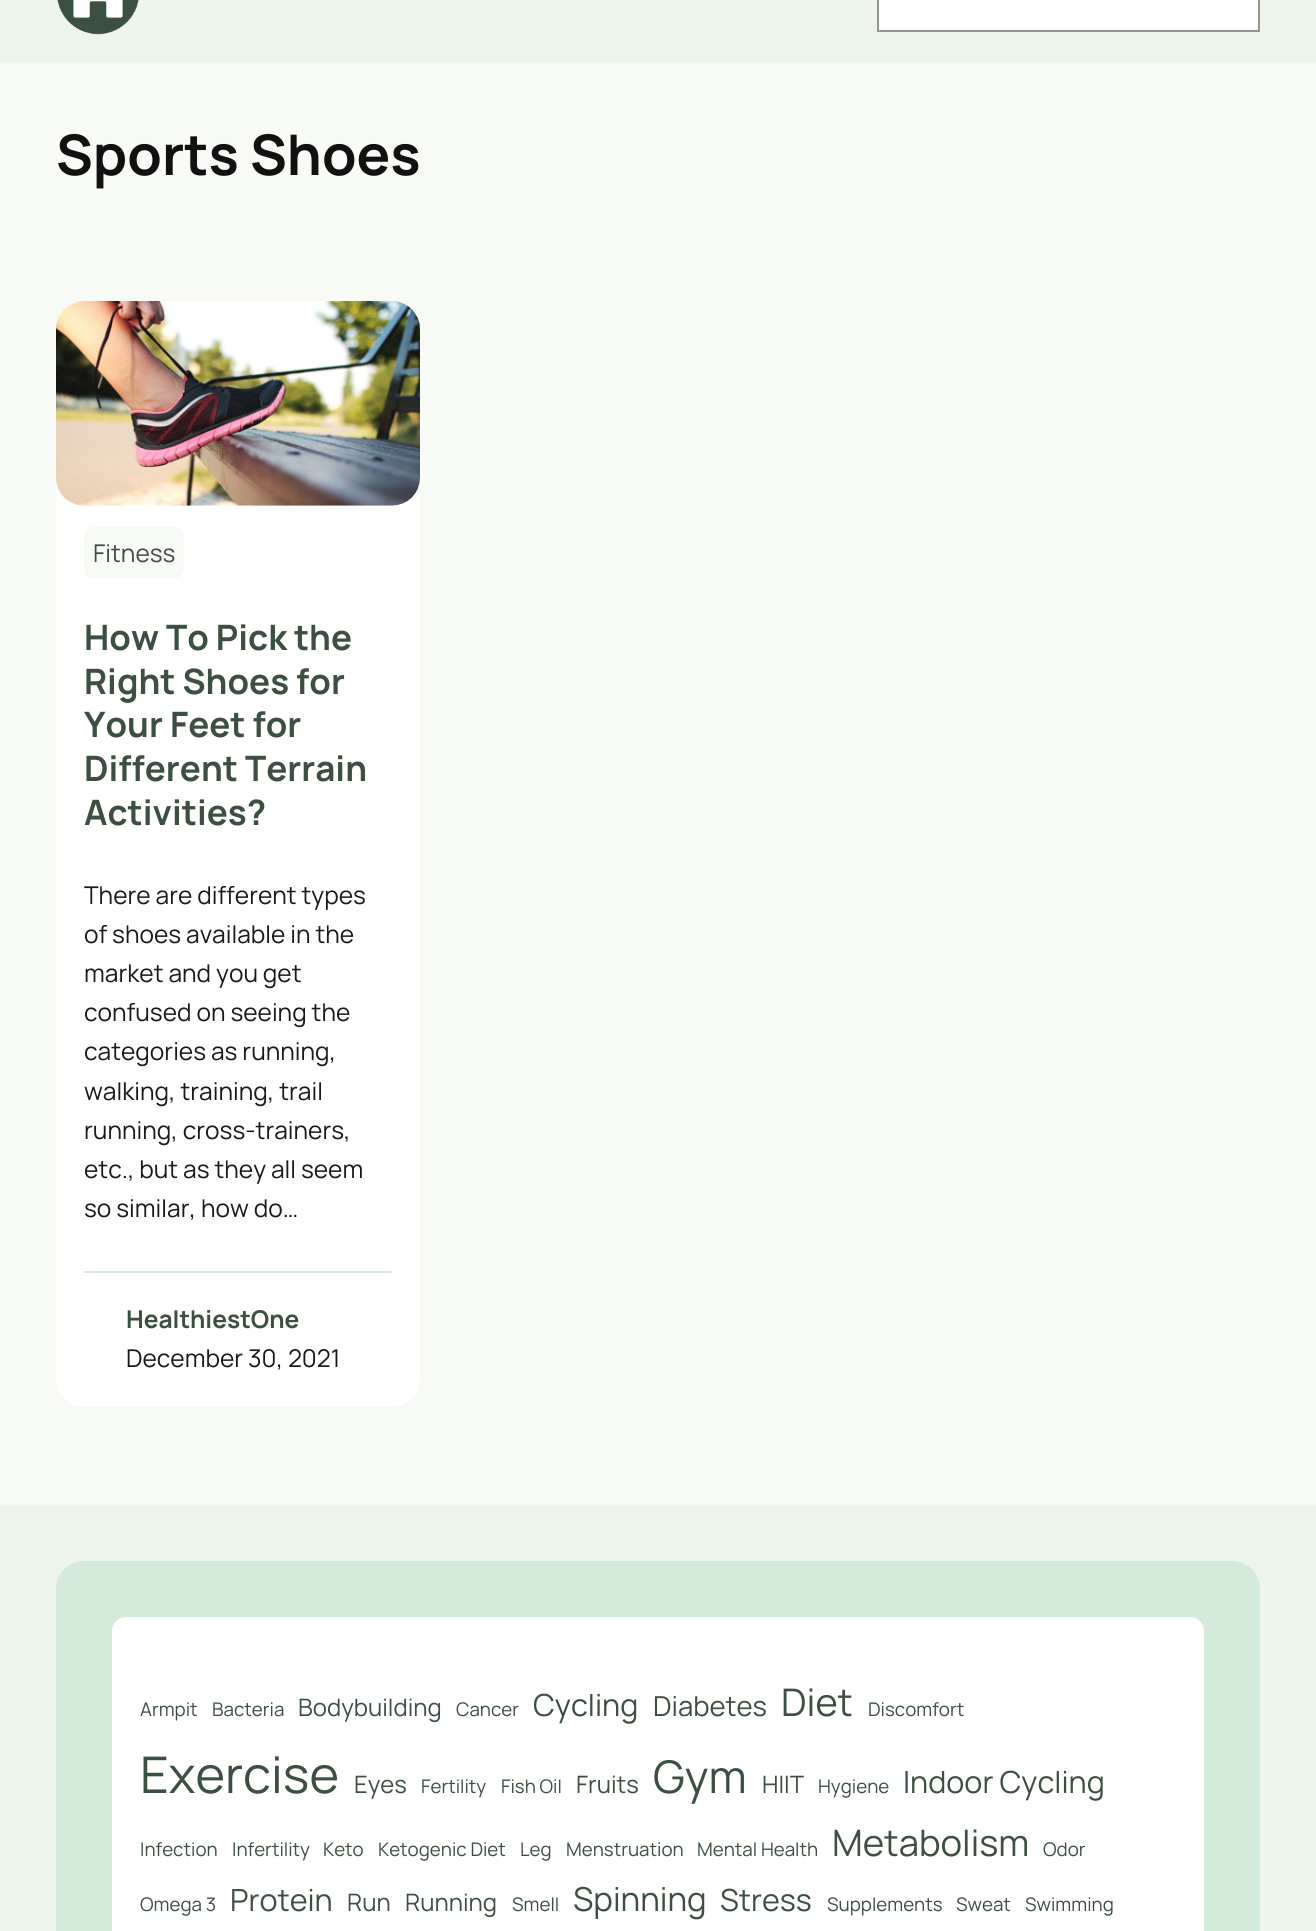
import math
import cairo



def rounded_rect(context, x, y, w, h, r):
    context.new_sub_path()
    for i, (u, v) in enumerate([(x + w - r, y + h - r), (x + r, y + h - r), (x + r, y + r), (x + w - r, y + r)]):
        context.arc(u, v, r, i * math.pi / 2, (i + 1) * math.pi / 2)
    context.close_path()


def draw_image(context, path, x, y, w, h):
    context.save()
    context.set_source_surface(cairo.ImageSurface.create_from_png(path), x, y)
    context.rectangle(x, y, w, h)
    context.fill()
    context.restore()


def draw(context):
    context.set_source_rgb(247 / 255, 250 / 255, 245 / 255)
    context.paint()
    context.set_source_rgb(238 / 255, 245 / 255, 235 / 255)
    context.rectangle(0, 0, 1316, 63)
    context.fill()
    draw_image(context, "images/1.png", 57, 0, 82, 35)
    context.set_source_rgb(1, 1, 1)
    context.rectangle(878, -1, 381, 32)
    context.fill_preserve()
    context.set_source_rgb(148 / 255, 148 / 255, 148 / 255)
    context.stroke()
    context.set_source_rgb(1, 1, 1)
    rounded_rect(context, 56, 301, 364, 1106, 28)
    context.fill()
    draw_image(context, "images/2.png", 56, 301, 364, 205)
    context.set_source_rgb(247 / 255, 250 / 255, 245 / 255)
    rounded_rect(context, 84, 527, 100, 51, 9)
    context.fill()
    context.set_source_rgb(213 / 255, 235 / 255, 217 / 255)
    context.rectangle(84, 1271, 308, 2)
    context.fill()
    context.set_source_rgb(238 / 255, 245 / 255, 235 / 255)
    context.rectangle(0, 1505, 1316, 426)
    context.fill()
    context.set_source_rgb(213 / 255, 235 / 255, 217 / 255)
    rounded_rect(context, 56, 1561, 1204, 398, 28)
    context.fill()
    context.set_source_rgb(1, 1, 1)
    rounded_rect(context, 112, 1617, 1092, 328, 14)
    context.fill()
    context.select_font_face("Manrope", cairo.FontSlant.NORMAL, cairo.FontWeight.BOLD)
    context.set_font_size(56)
    context.set_source_rgb(17 / 255, 17 / 255, 17 / 255)
    context.move_to(56, 175)
    context.show_text("Sports Shoes")
    context.select_font_face("Manrope")
    context.set_font_size(24.5)
    context.set_source_rgb(59 / 255, 80 / 255, 65 / 255)
    context.move_to(93, 562)
    context.show_text("Fitness")
    context.select_font_face("Manrope", cairo.FontSlant.NORMAL, cairo.FontWeight.BOLD)
    context.set_font_size(35)
    context.move_to(84, 650)
    context.show_text("How To Pick the")
    context.move_to(84, 694)
    context.show_text("Right Shoes for")
    context.move_to(84, 737)
    context.show_text("Your Feet for")
    context.move_to(84, 781)
    context.show_text("Different Terrain")
    context.move_to(84, 825)
    context.show_text("Activities?")
    context.select_font_face("Manrope")
    context.set_font_size(24.5)
    context.set_source_rgb(28 / 255, 24 / 255, 25 / 255)
    context.move_to(84, 904)
    context.show_text("There are different types")
    context.move_to(84, 943)
    context.show_text("of shoes available in the")
    context.move_to(84, 982)
    context.show_text("market and you get")
    context.move_to(84, 1021)
    context.show_text("confused on seeing the")
    context.move_to(84, 1060)
    context.show_text("categories as running,")
    context.move_to(84, 1100)
    context.show_text("walking, training, trail")
    context.move_to(84, 1139)
    context.show_text("running, cross-trainers,")
    context.move_to(84, 1178)
    context.show_text("etc., but as they all seem")
    context.move_to(84, 1217)
    context.show_text("so similar, how do…")
    context.select_font_face("Manrope", cairo.FontSlant.NORMAL, cairo.FontWeight.BOLD)
    context.set_source_rgb(59 / 255, 80 / 255, 65 / 255)
    context.move_to(126, 1328)
    context.show_text("HealthiestOne")
    context.select_font_face("Manrope")
    context.set_source_rgb(28 / 255, 24 / 255, 25 / 255)
    context.move_to(126, 1367)
    context.show_text("December 30, 2021")
    context.set_font_size(18.75)
    context.set_source_rgb(59 / 255, 80 / 255, 65 / 255)
    context.move_to(140, 1716)
    context.show_text("Armpit")
    context.move_to(212, 1716)
    context.show_text("Bacteria")
    context.set_font_size(24)
    context.move_to(298, 1716)
    context.show_text("Bodybuilding")
    context.set_font_size(18.75)
    context.move_to(456, 1716)
    context.show_text("Cancer")
    context.set_font_size(30.5)
    context.move_to(533, 1716)
    context.show_text("Cycling")
    context.set_font_size(27.5)
    context.move_to(653, 1716)
    context.show_text("Diabetes")
    context.set_font_size(38)
    context.move_to(781, 1716)
    context.show_text("Diet")
    context.set_font_size(18.75)
    context.move_to(868, 1716)
    context.show_text("Discomfort")
    context.set_font_size(50.5)
    context.move_to(140, 1793)
    context.show_text("Exercise")
    context.set_font_size(24)
    context.move_to(354, 1793)
    context.show_text("Eyes")
    context.set_font_size(18.75)
    context.move_to(421, 1793)
    context.show_text("Fertility")
    context.move_to(501, 1793)
    context.show_text("Fish Oil")
    context.set_font_size(24)
    context.move_to(576, 1793)
    context.show_text("Fruits")
    context.set_font_size(45)
    context.move_to(653, 1793)
    context.show_text("Gym")
    context.set_font_size(24)
    context.move_to(762, 1793)
    context.show_text("HIIT")
    context.set_font_size(18.75)
    context.move_to(818, 1793)
    context.show_text("Hygiene")
    context.set_font_size(30.5)
    context.move_to(903, 1793)
    context.show_text("Indoor Cycling")
    context.set_font_size(18.75)
    context.move_to(140, 1856)
    context.show_text("Infection")
    context.move_to(232, 1856)
    context.show_text("Infertility")
    context.move_to(323, 1856)
    context.show_text("Keto")
    context.move_to(378, 1856)
    context.show_text("Ketogenic Diet")
    context.move_to(520, 1856)
    context.show_text("Leg")
    context.move_to(566, 1856)
    context.show_text("Menstruation")
    context.move_to(697, 1856)
    context.show_text("Mental Health")
    context.set_font_size(36.5)
    context.move_to(832, 1856)
    context.show_text("Metabolism")
    context.set_font_size(18.75)
    context.move_to(1043, 1856)
    context.show_text("Odor")
    context.move_to(140, 1911)
    context.show_text("Omega 3")
    context.set_font_size(30.5)
    context.move_to(230, 1911)
    context.show_text("Protein")
    context.set_font_size(24)
    context.move_to(347, 1911)
    context.show_text("Run")
    context.move_to(405, 1911)
    context.show_text("Running")
    context.set_font_size(18.75)
    context.move_to(512, 1911)
    context.show_text("Smell")
    context.set_font_size(33)
    context.move_to(573, 1911)
    context.show_text("Spinning")
    context.set_font_size(30.5)
    context.move_to(720, 1911)
    context.show_text("Stress")
    context.set_font_size(18.75)
    context.move_to(827, 1911)
    context.show_text("Supplements")
    context.move_to(956, 1911)
    context.show_text("Sweat")
    context.move_to(1025, 1911)
    context.show_text("Swimming")


surface = cairo.ImageSurface(cairo.Format.RGB24, 1316, 1931)
context = cairo.Context(surface)
options = cairo.FontOptions()
options.set_hint_metrics(cairo.HintMetrics.OFF)
options.set_hint_style(cairo.HintStyle.NONE)
context.set_font_options(options)
context.set_miter_limit(4)
draw(context)
surface.write_to_png("out.png")
